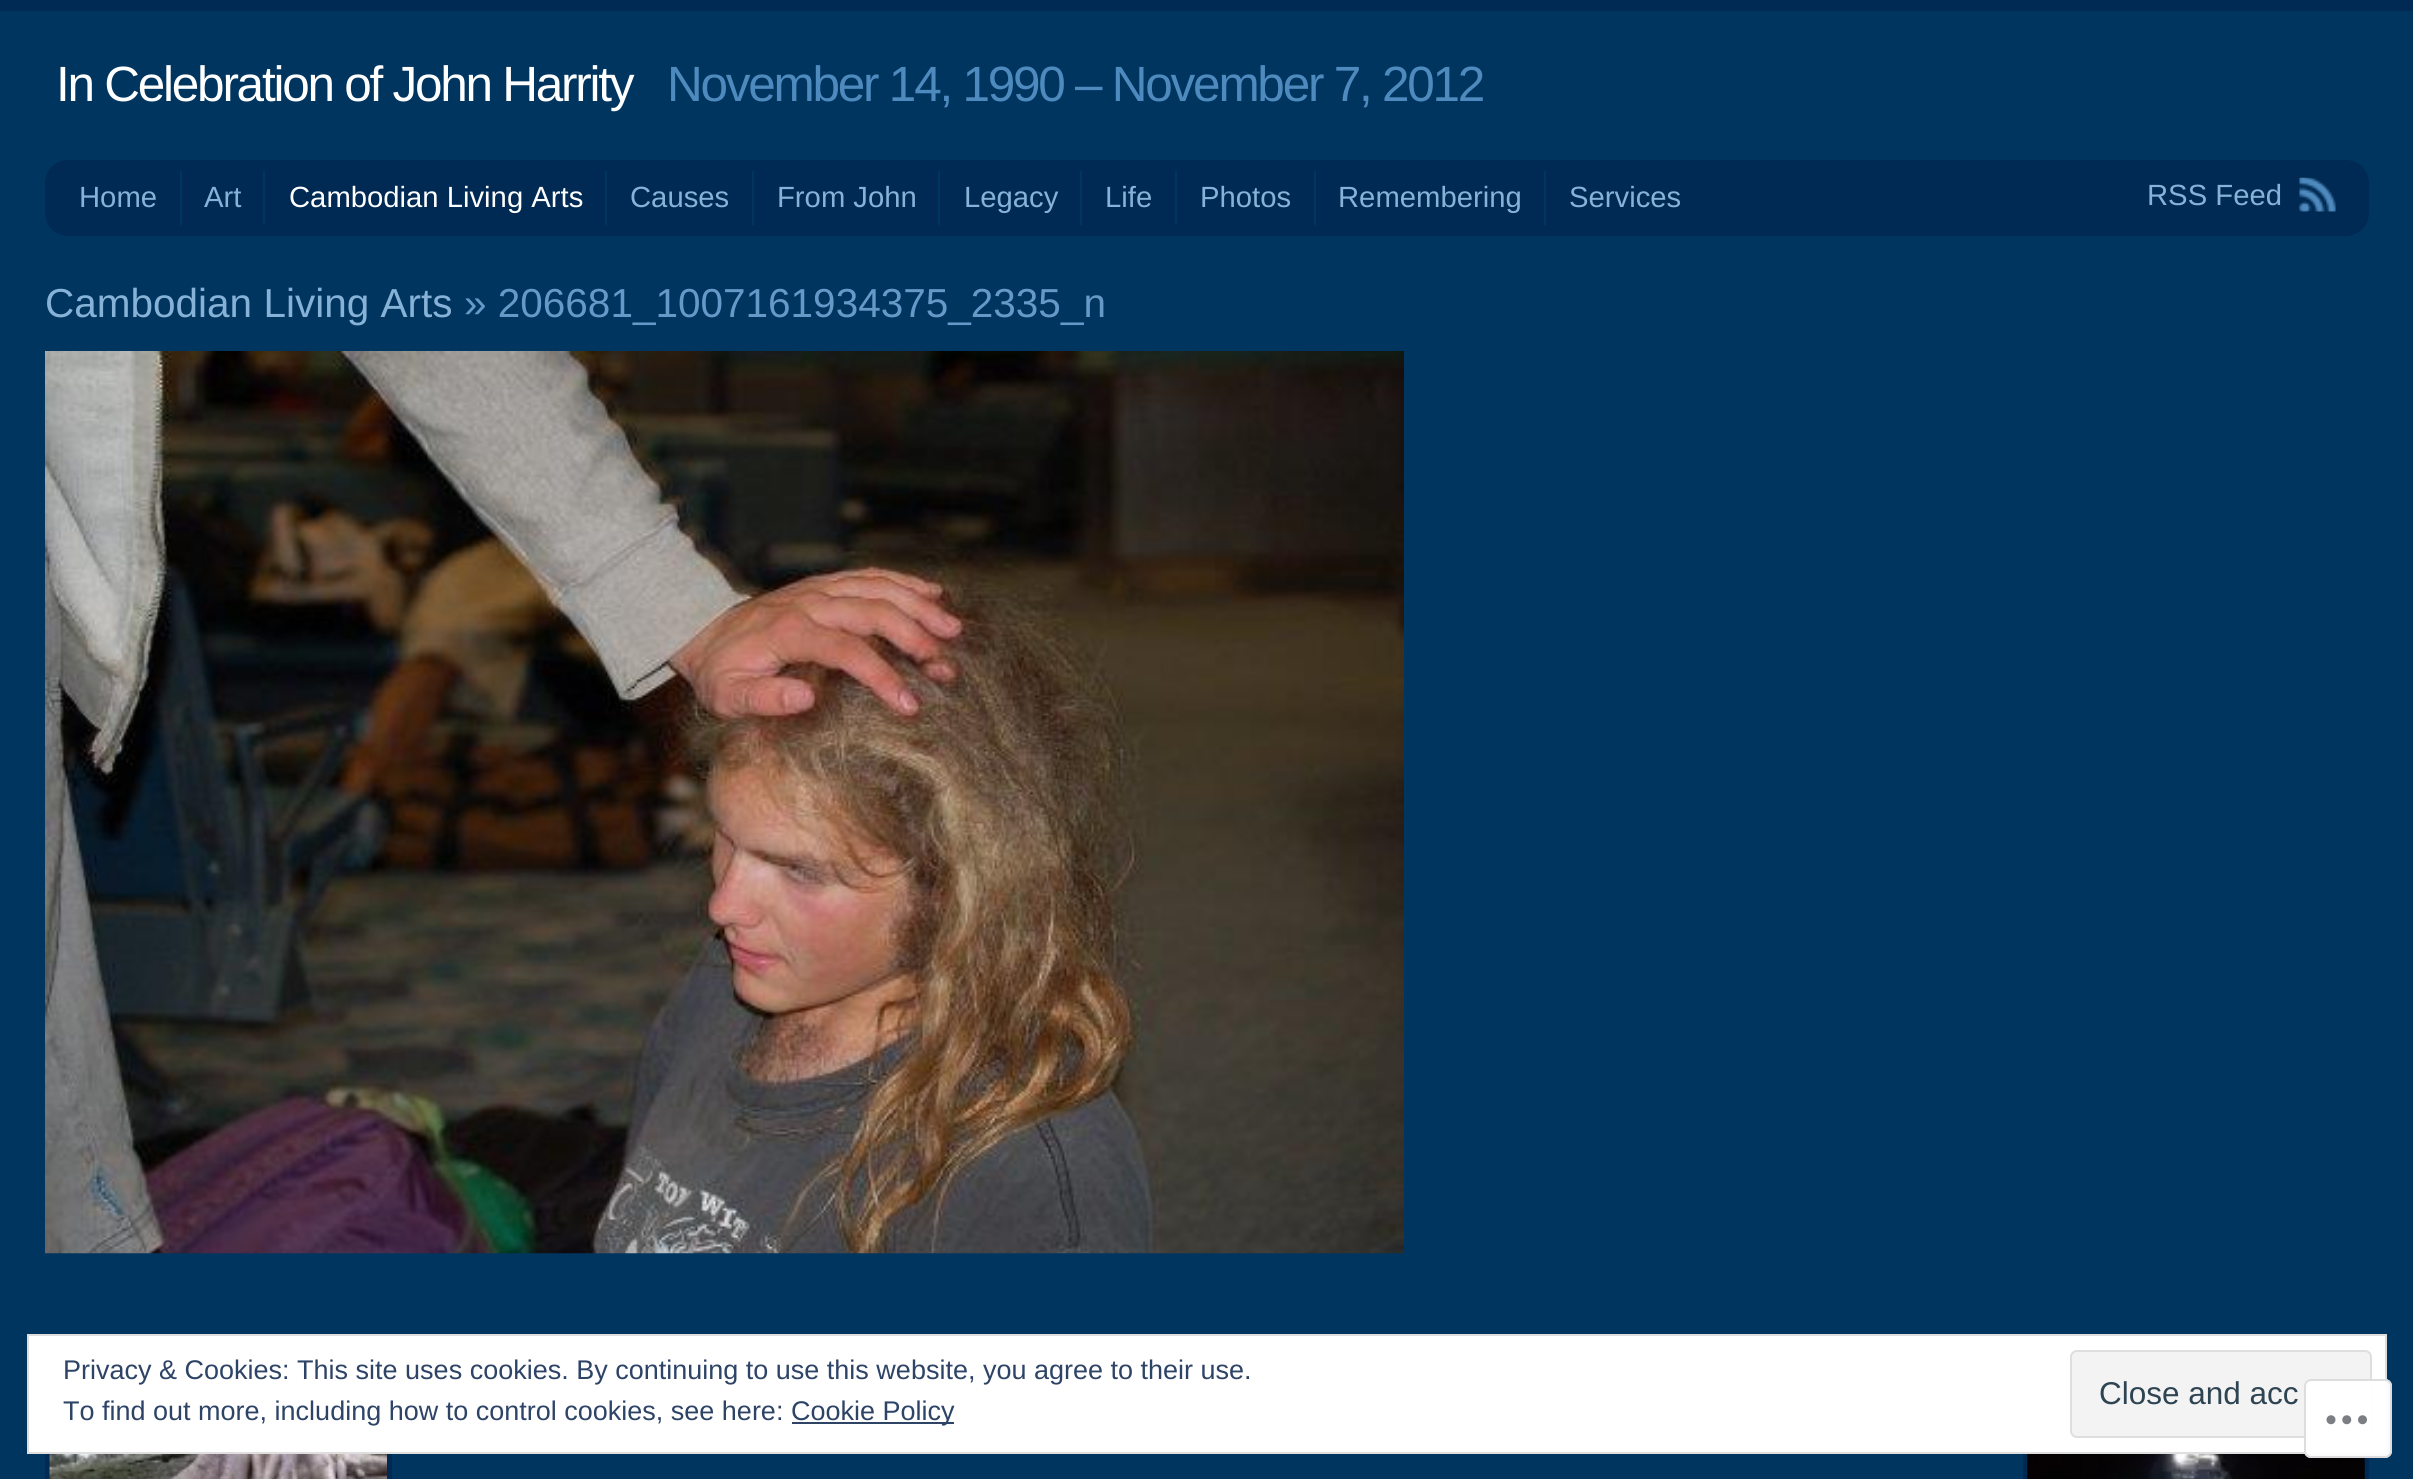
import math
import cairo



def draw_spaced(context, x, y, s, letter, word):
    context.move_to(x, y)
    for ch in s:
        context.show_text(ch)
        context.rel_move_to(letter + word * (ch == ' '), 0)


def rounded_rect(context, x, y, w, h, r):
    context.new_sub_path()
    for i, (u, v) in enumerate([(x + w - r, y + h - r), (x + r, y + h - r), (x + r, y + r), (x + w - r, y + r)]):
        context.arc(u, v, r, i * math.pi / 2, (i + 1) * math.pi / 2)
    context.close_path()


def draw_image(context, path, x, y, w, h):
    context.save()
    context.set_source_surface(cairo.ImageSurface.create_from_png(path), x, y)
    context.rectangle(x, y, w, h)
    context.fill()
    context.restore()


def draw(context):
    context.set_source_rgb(0, 53 / 255, 95 / 255)
    context.paint()
    context.set_source_rgb(0, 42 / 255, 83 / 255)
    context.rectangle(0, 0, 2413, 11)
    context.fill()
    rounded_rect(context, 45, 160, 2324, 76, 23)
    context.fill()
    context.set_source_rgb(0, 53 / 255, 95 / 255)
    context.rectangle(180, 171, 2, 54)
    context.fill()
    context.rectangle(263, 171, 2, 54)
    context.fill()
    context.rectangle(605, 171, 2, 54)
    context.fill()
    context.rectangle(752, 171, 2, 54)
    context.fill()
    context.rectangle(938, 171, 2, 54)
    context.fill()
    context.rectangle(1080, 171, 2, 54)
    context.fill()
    context.rectangle(1175, 171, 2, 54)
    context.fill()
    context.rectangle(1314, 171, 2, 54)
    context.fill()
    context.rectangle(1544, 171, 2, 54)
    context.fill()
    draw_image(context, "images/1.png", 2299, 177, 37, 35)
    draw_image(context, "images/2.png", 45, 351, 1359, 903)
    context.set_source_rgb(0, 42 / 255, 83 / 255)
    context.rectangle(45, 1454, 347, 25)
    context.fill()
    draw_image(context, "images/3.png", 49, 1454, 338, 25)
    context.rectangle(2023, 1454, 346, 25)
    context.fill()
    draw_image(context, "images/4.png", 2027, 1454, 338, 25)
    context.set_source_rgb(1, 1, 1)
    context.rectangle(28, 1335, 2358, 118)
    context.fill_preserve()
    context.set_source_rgb(222 / 255, 222 / 255, 222 / 255)
    context.stroke()
    context.set_source_rgb(243 / 255, 243 / 255, 243 / 255)
    rounded_rect(context, 2071, 1351, 300, 86, 6)
    context.fill_preserve()
    context.set_source_rgb(222 / 255, 222 / 255, 222 / 255)
    context.stroke()
    context.set_source_rgb(46 / 255, 68 / 255, 103 / 255)
    context.rectangle(792, 1422, 162, 2)
    context.fill()
    context.set_source_rgba(1, 1, 1, 0.98)
    rounded_rect(context, 2304, 1379, 88, 79, 7)
    context.fill()
    rounded_rect(context, 2305, 1380, 86, 77, 6)
    context.set_source_rgba(220 / 255, 220 / 255, 222 / 255, 0.98)
    context.stroke()
    draw_image(context, "images/5.png", 2326, 1415, 41, 10)
    context.select_font_face("Liberation Sans")
    context.set_font_size(49.5)
    context.set_source_rgb(1, 1, 1)
    draw_spaced(context, 56, 101, "In Celebration of John Harrity", -2.25, 0)
    context.set_source_rgb(78 / 255, 138 / 255, 190 / 255)
    draw_spaced(context, 667, 101, "November 14, 1990 – November 7, 2012", -2.25, 0)
    context.set_font_size(29.25)
    context.set_source_rgb(135 / 255, 178 / 255, 216 / 255)
    context.move_to(79, 207)
    context.show_text("Home")
    context.move_to(204, 207)
    context.show_text("Art")
    context.set_source_rgb(1, 1, 1)
    context.move_to(289, 207)
    context.show_text("Cambodian Living Arts")
    context.set_source_rgb(135 / 255, 178 / 255, 216 / 255)
    context.move_to(630, 207)
    context.show_text("Causes")
    context.move_to(777, 207)
    context.show_text("From John")
    context.move_to(964, 207)
    context.show_text("Legacy")
    context.move_to(1105, 207)
    context.show_text("Life")
    context.move_to(1200, 207)
    context.show_text("Photos")
    context.move_to(1338, 207)
    context.show_text("Remembering")
    context.move_to(1569, 207)
    context.show_text("Services")
    context.move_to(2147, 205)
    context.show_text("RSS Feed")
    context.set_font_size(40.5)
    context.move_to(45, 317)
    context.show_text("Cambodian Living Arts")
    context.set_source_rgb(103 / 255, 153 / 255, 200 / 255)
    context.move_to(464, 317)
    context.show_text("» 206681_1007161934375_2335_n")
    context.set_font_size(27)
    context.set_source_rgb(46 / 255, 68 / 255, 103 / 255)
    context.move_to(63, 1379)
    context.show_text("Privacy & Cookies: This site uses cookies. By continuing to use this website, you agree to their use.")
    context.set_font_size(31.5)
    context.set_source_rgb(46 / 255, 68 / 255, 83 / 255)
    context.move_to(2099, 1404)
    context.show_text("Close and acc")
    context.set_font_size(27)
    context.set_source_rgb(46 / 255, 68 / 255, 103 / 255)
    context.move_to(63, 1420)
    context.show_text("To find out more, including how to control cookies, see here:")
    context.move_to(791, 1420)
    context.show_text("Cookie Policy")


surface = cairo.ImageSurface(cairo.Format.RGB24, 2413, 1479)
context = cairo.Context(surface)
options = cairo.FontOptions()
options.set_hint_metrics(cairo.HintMetrics.OFF)
options.set_hint_style(cairo.HintStyle.NONE)
context.set_font_options(options)
context.set_miter_limit(4)
draw(context)
surface.write_to_png("out.png")
